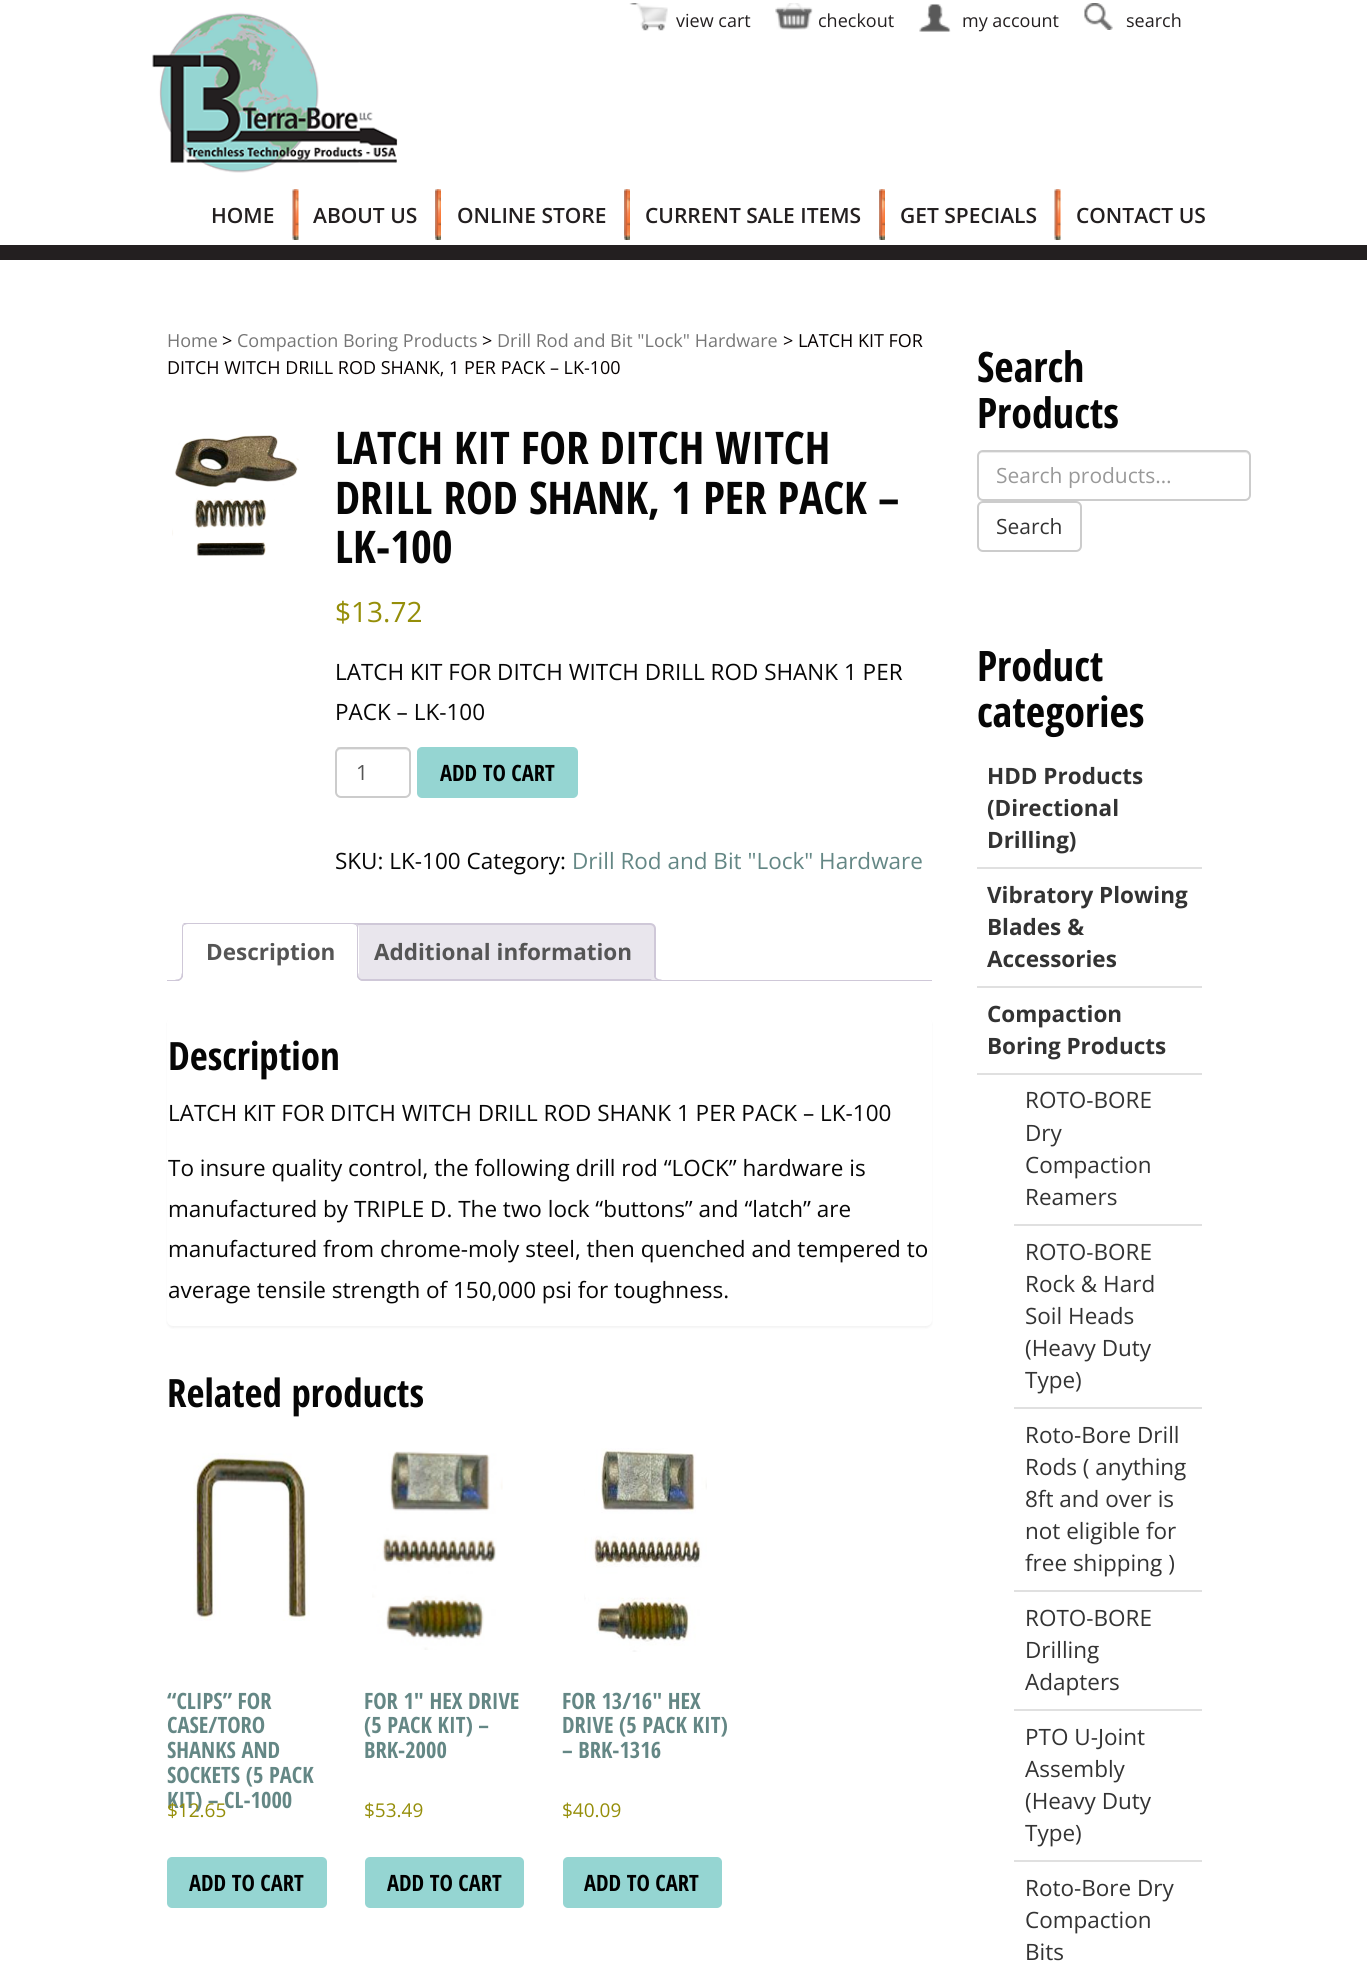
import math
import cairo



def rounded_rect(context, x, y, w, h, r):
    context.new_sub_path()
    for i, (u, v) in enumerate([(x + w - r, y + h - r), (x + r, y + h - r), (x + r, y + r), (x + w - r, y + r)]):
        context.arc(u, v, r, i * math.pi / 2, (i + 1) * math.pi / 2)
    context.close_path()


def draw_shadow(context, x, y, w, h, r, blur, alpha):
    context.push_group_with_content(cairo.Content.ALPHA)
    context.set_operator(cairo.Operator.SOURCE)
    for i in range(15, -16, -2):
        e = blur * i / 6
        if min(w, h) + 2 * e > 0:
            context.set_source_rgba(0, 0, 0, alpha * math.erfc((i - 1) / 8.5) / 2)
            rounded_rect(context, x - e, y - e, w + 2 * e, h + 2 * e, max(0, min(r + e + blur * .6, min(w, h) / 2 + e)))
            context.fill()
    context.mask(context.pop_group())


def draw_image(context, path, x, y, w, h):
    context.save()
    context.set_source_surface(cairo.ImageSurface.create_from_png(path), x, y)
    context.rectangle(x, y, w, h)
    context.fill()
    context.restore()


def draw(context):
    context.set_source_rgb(1, 1, 1)
    context.paint()
    context.set_source_rgb(35 / 255, 31 / 255, 32 / 255)
    context.rectangle(0, 245, 1367, 15)
    context.fill()
    draw_image(context, "images/1.png", 152, 12, 246, 161)
    draw_image(context, "images/2.png", 629, 3, 39, 28)
    draw_image(context, "images/3.png", 775, 3, 38, 27)
    draw_image(context, "images/4.png", 919, 3, 32, 29)
    draw_image(context, "images/5.png", 1084, 3, 29, 27)
    draw_image(context, "images/6.png", 292, 189, 7, 51)
    draw_image(context, "images/7.png", 435, 189, 6, 51)
    draw_image(context, "images/8.png", 624, 189, 6, 51)
    draw_image(context, "images/8.png", 879, 189, 6, 51)
    draw_image(context, "images/6.png", 1054, 189, 7, 51)
    draw_image(context, "images/9.png", 172, 435, 127, 121)
    draw_image(context, "images/10.png", 337, 747, 4, 2)
    context.set_source_rgb(1, 1, 1)
    rounded_rect(context, 335, 747, 76, 51, 6)
    context.fill()
    context.set_source_rgb(236 / 255, 236 / 255, 236 / 255)
    context.new_path()
    context.move_to(340, 750)
    context.line_to(405, 750)
    context.curve_to(407, 750, 410, 752, 410, 754)
    context.curve_to(410, 751, 408, 749, 405, 749)
    context.line_to(341, 749)
    context.curve_to(338, 749, 336, 751, 336, 754)
    context.curve_to(336, 752, 338, 750, 340, 750)
    context.close_path()
    context.fill()
    rounded_rect(context, 336, 748, 74, 49, 5)
    context.set_source_rgb(204 / 255, 204 / 255, 204 / 255)
    context.stroke()
    context.set_source_rgb(149 / 255, 213 / 255, 210 / 255)
    rounded_rect(context, 417, 747, 161, 51, 5)
    context.fill()
    context.set_source_rgb(233 / 255, 230 / 255, 237 / 255)
    context.new_path()
    context.move_to(356, 924)
    context.line_to(650, 924)
    context.curve_to(653, 924, 655, 926, 655, 929)
    context.line_to(655, 980)
    context.line_to(351, 980)
    context.line_to(351, 929)
    context.curve_to(351, 926, 353, 924, 356, 924)
    context.close_path()
    context.fill_preserve()
    context.set_source_rgb(207 / 255, 200 / 255, 216 / 255)
    context.stroke()
    context.save()
    context.rectangle(167, 923, 765, 58)
    context.clip()
    context.set_source_rgb(233 / 255, 230 / 255, 237 / 255)
    context.new_path()
    context.move_to(651, 977)
    context.curve_to(651, 982.5, 654, 984, 659, 984)
    context.line_to(659, 981)
    context.curve_to(657, 980.5, 655, 979, 654.5, 977)
    context.close_path()
    context.fill()
    context.restore()
    context.set_fill_rule(cairo.FillRule.EVEN_ODD)
    context.new_path()
    context.move_to(654, 973.5)
    context.line_to(661.5, 973.5)
    context.line_to(661.5, 981)
    context.curve_to(657.5, 981, 654, 979.5, 654, 975)
    context.close_path()
    context.move_to(655.5, 973.5)
    context.line_to(661.5, 973.5)
    context.line_to(661.5, 979.5)
    context.curve_to(658.5, 979.5, 655.5, 978.5, 655.5, 975)
    context.close_path()
    context.fill()
    context.rectangle(167, 980, 765, 1)
    context.fill()
    context.set_source_rgb(1, 1, 1)
    context.new_path()
    context.move_to(188, 923)
    context.line_to(353, 923)
    context.curve_to(356.5, 923, 359, 925.5, 359, 929)
    context.line_to(359, 981)
    context.line_to(182, 981)
    context.line_to(182, 929)
    context.curve_to(182, 925.5, 184.5, 923, 188, 923)
    context.close_path()
    context.fill()
    context.save()
    context.set_fill_rule(cairo.FillRule.WINDING)
    context.rectangle(167, 923, 765, 58)
    context.clip()
    context.set_source_rgb(207 / 255, 200 / 255, 216 / 255)
    context.new_path()
    context.move_to(188, 924)
    context.curve_to(186, 924, 185, 925, 184, 925)
    context.line_to(183, 924)
    context.line_to(185, 922)
    context.line_to(326, 922)
    context.curve_to(337, 922, 351, 916, 357, 924)
    context.line_to(356, 925)
    context.curve_to(355, 925, 354, 924, 352, 924)
    context.close_path()
    context.fill()
    context.restore()
    context.set_source_rgb(207 / 255, 200 / 255, 216 / 255)
    context.set_fill_rule(cairo.FillRule.WINDING)
    context.new_path()
    context.move_to(357, 924)
    context.curve_to(358, 925, 358, 927, 358, 928)
    context.line_to(358, 980)
    context.line_to(357, 980)
    context.line_to(357, 927)
    context.line_to(356, 925)
    context.close_path()
    context.fill()
    context.new_path()
    context.move_to(182, 980)
    context.line_to(182, 928)
    context.curve_to(182, 927, 182, 925, 183, 924)
    context.line_to(184, 925)
    context.line_to(183, 927)
    context.line_to(183, 980)
    context.close_path()
    context.fill()
    context.save()
    context.rectangle(167, 923, 765, 58)
    context.clip()
    context.set_source_rgb(1, 1, 1)
    context.new_path()
    context.move_to(179, 980.5)
    context.line_to(179, 984)
    context.curve_to(183.5, 984, 186, 981.5, 186, 977)
    context.line_to(182.5, 977)
    context.curve_to(182, 978.5, 180.5, 980, 179, 980.5)
    context.close_path()
    context.fill()
    context.restore()
    context.set_fill_rule(cairo.FillRule.EVEN_ODD)
    context.new_path()
    context.move_to(175.5, 973.5)
    context.line_to(183, 973.5)
    context.curve_to(183, 979, 181, 981, 175.5, 981)
    context.close_path()
    context.move_to(175.5, 973.5)
    context.line_to(181.5, 973.5)
    context.curve_to(181.5, 978, 180, 979.5, 175.5, 979.5)
    context.close_path()
    context.fill()
    context.save()
    context.set_fill_rule(cairo.FillRule.WINDING)
    context.rectangle(167, 923, 765, 58)
    context.clip()
    context.set_source_rgb(1, 1, 1)
    context.new_path()
    context.move_to(354, 977)
    context.curve_to(354, 982.5, 357, 984, 362, 984)
    context.line_to(362, 981)
    context.curve_to(360, 980.5, 358, 979, 357.5, 977)
    context.close_path()
    context.fill()
    context.restore()
    context.new_path()
    context.move_to(357, 973.5)
    context.line_to(364.5, 973.5)
    context.line_to(364.5, 981)
    context.curve_to(360.5, 981, 357, 979.5, 357, 975)
    context.close_path()
    context.move_to(358.5, 973.5)
    context.line_to(364.5, 973.5)
    context.line_to(364.5, 979.5)
    context.curve_to(361.5, 979.5, 358.5, 978.5, 358.5, 975)
    context.close_path()
    context.fill()
    context.set_source_rgb(0, 0, 0)
    draw_shadow(context, 167, 1019, 765, 309, 6, 1, 0.05)
    context.set_source_rgb(1, 1, 1)
    rounded_rect(context, 167, 1017, 765, 309, 6)
    context.fill()
    draw_image(context, "images/11.png", 193, 1453, 117, 168)
    context.set_source_rgb(149 / 255, 213 / 255, 210 / 255)
    rounded_rect(context, 167, 1857, 160, 51, 5)
    context.fill()
    draw_image(context, "images/12.png", 372, 1451, 131, 199)
    rounded_rect(context, 365, 1857, 159, 51, 5)
    context.fill()
    draw_image(context, "images/13.png", 584, 1448, 123, 204)
    rounded_rect(context, 563, 1857, 159, 51, 5)
    context.fill()
    context.set_source_rgb(236 / 255, 236 / 255, 236 / 255)
    context.set_fill_rule(cairo.FillRule.WINDING)
    context.new_path()
    context.move_to(982, 453)
    context.line_to(1245, 453)
    context.curve_to(1247, 453, 1250, 455, 1250, 458)
    context.curve_to(1250, 455, 1248, 452, 1245, 452)
    context.line_to(983, 452)
    context.curve_to(980, 452, 978, 455, 978, 458)
    context.curve_to(978, 455, 980, 453, 982, 453)
    context.close_path()
    context.fill()
    rounded_rect(context, 978, 451, 272, 49, 5)
    context.set_source_rgb(204 / 255, 204 / 255, 204 / 255)
    context.stroke()
    rounded_rect(context, 978, 502, 103, 49, 5)
    context.stroke()
    context.set_source_rgb(224 / 255, 224 / 255, 224 / 255)
    context.rectangle(977, 867, 225, 2)
    context.fill()
    context.rectangle(977, 986, 225, 2)
    context.fill()
    context.rectangle(977, 1073, 225, 2)
    context.fill()
    context.rectangle(1014, 1224, 188, 2)
    context.fill()
    context.rectangle(1014, 1407, 188, 2)
    context.fill()
    context.rectangle(1014, 1590, 188, 2)
    context.fill()
    context.rectangle(1014, 1709, 188, 2)
    context.fill()
    context.rectangle(1014, 1860, 188, 2)
    context.fill()
    context.select_font_face("Open Sans")
    context.set_font_size(18)
    context.set_source_rgb(35 / 255, 31 / 255, 32 / 255)
    context.move_to(676, 27)
    context.show_text("view cart")
    context.move_to(818, 27)
    context.show_text("checkout")
    context.move_to(962, 27)
    context.show_text("my account")
    context.move_to(1126, 27)
    context.show_text("search")
    context.select_font_face("Open Sans SemiBold")
    context.set_font_size(21)
    context.move_to(211, 223)
    context.show_text("HOME")
    context.move_to(313, 223)
    context.show_text("ABOUT US")
    context.move_to(457, 223)
    context.show_text("ONLINE STORE")
    context.move_to(645, 223)
    context.show_text("CURRENT SALE ITEMS")
    context.move_to(900, 223)
    context.show_text("GET SPECIALS")
    context.move_to(1076, 223)
    context.show_text("CONTACT US")
    context.select_font_face("Open Sans")
    context.set_font_size(18)
    context.set_source_rgb(118 / 255, 118 / 255, 118 / 255)
    context.move_to(167, 347)
    context.show_text("Home")
    context.set_source_rgb(6 / 255, 0, 0)
    context.move_to(222, 347)
    context.show_text(">")
    context.set_source_rgb(118 / 255, 118 / 255, 118 / 255)
    context.move_to(237, 347)
    context.show_text("Compaction Boring Products")
    context.set_source_rgb(6 / 255, 0, 0)
    context.move_to(482, 347)
    context.show_text(">")
    context.set_source_rgb(118 / 255, 118 / 255, 118 / 255)
    context.move_to(497, 347)
    context.show_text("Drill Rod and Bit \"Lock\" Hardware")
    context.set_source_rgb(6 / 255, 0, 0)
    context.move_to(783, 347)
    context.show_text("> LATCH KIT FOR")
    context.move_to(167, 374)
    context.show_text("DITCH WITCH DRILL ROD SHANK, 1 PER PACK – LK-100")
    context.select_font_face("Open Sans Condensed", cairo.FontSlant.NORMAL, cairo.FontWeight.BOLD)
    context.set_font_size(45)
    context.set_source_rgb(6 / 255, 6 / 255, 6 / 255)
    context.move_to(335, 464)
    context.show_text("LATCH KIT FOR DITCH WITCH")
    context.move_to(335, 514)
    context.show_text("DRILL ROD SHANK, 1 PER PACK –")
    context.move_to(335, 563)
    context.show_text("LK-100")
    context.select_font_face("Open Sans")
    context.set_font_size(28)
    context.set_source_rgb(149 / 255, 142 / 255, 9 / 255)
    context.move_to(335, 622)
    context.show_text("$13.72")
    context.set_font_size(22.5)
    context.set_source_rgb(6 / 255, 6 / 255, 6 / 255)
    context.move_to(335, 680)
    context.show_text("LATCH KIT FOR DITCH WITCH DRILL ROD SHANK 1 PER")
    context.move_to(335, 720)
    context.show_text("PACK – LK-100")
    context.set_font_size(21)
    context.set_source_rgb(85 / 255, 85 / 255, 85 / 255)
    context.move_to(356, 780)
    context.show_text("1")
    context.select_font_face("Open Sans Condensed", cairo.FontSlant.NORMAL, cairo.FontWeight.BOLD)
    context.set_font_size(22.5)
    context.set_source_rgb(0, 0, 0)
    context.move_to(440, 781)
    context.show_text("ADD TO CART")
    context.select_font_face("Open Sans")
    context.set_source_rgb(6 / 255, 6 / 255, 6 / 255)
    context.move_to(335, 869)
    context.show_text("SKU: LK-100 Category:")
    context.set_source_rgb(100 / 255, 135 / 255, 133 / 255)
    context.move_to(572, 869)
    context.show_text("Drill Rod and Bit \"Lock\" Hardware")
    context.select_font_face("Open Sans", cairo.FontSlant.NORMAL, cairo.FontWeight.BOLD)
    context.set_source_rgb(85 / 255, 85 / 255, 85 / 255)
    context.move_to(206, 960)
    context.show_text("Description")
    context.move_to(374, 960)
    context.show_text("Additional information")
    context.select_font_face("Open Sans Condensed", cairo.FontSlant.NORMAL, cairo.FontWeight.BOLD)
    context.set_font_size(39)
    context.set_source_rgb(6 / 255, 6 / 255, 6 / 255)
    context.move_to(168, 1070)
    context.show_text("Description")
    context.select_font_face("Open Sans")
    context.set_font_size(22.5)
    context.move_to(168, 1121)
    context.show_text("LATCH KIT FOR DITCH WITCH DRILL ROD SHANK 1 PER PACK – LK-100")
    context.move_to(168, 1176)
    context.show_text("To insure quality control, the following drill rod “LOCK” hardware is")
    context.move_to(168, 1217)
    context.show_text("manufactured by TRIPLE D. The two lock “buttons” and “latch” are")
    context.move_to(168, 1257)
    context.show_text("manufactured from chrome-moly steel, then quenched and tempered to")
    context.move_to(168, 1298)
    context.show_text("average tensile strength of 150,000 psi for toughness.")
    context.select_font_face("Open Sans Condensed", cairo.FontSlant.NORMAL, cairo.FontWeight.BOLD)
    context.set_font_size(39)
    context.move_to(167, 1407)
    context.show_text("Related products")
    context.set_font_size(22.5)
    context.set_source_rgb(100 / 255, 135 / 255, 133 / 255)
    context.move_to(167, 1709)
    context.show_text("“CLIPS” FOR")
    context.move_to(167, 1733)
    context.show_text("CASE/TORO")
    context.move_to(167, 1758)
    context.show_text("SHANKS AND")
    context.move_to(167, 1783)
    context.show_text("SOCKETS (5 PACK")
    context.move_to(167, 1808)
    context.show_text("KIT) – CL-1000")
    context.select_font_face("Open Sans")
    context.set_font_size(19)
    context.set_source_rgb(149 / 255, 142 / 255, 9 / 255)
    context.move_to(167, 1817)
    context.show_text("$12.65")
    context.select_font_face("Open Sans Condensed", cairo.FontSlant.NORMAL, cairo.FontWeight.BOLD)
    context.set_font_size(22.5)
    context.set_source_rgb(0, 0, 0)
    context.move_to(189, 1891)
    context.show_text("ADD TO CART")
    context.set_source_rgb(100 / 255, 135 / 255, 133 / 255)
    context.move_to(364, 1709)
    context.show_text("FOR 1″ HEX DRIVE")
    context.move_to(364, 1733)
    context.show_text("(5 PACK KIT) –")
    context.move_to(364, 1758)
    context.show_text("BRK-2000")
    context.select_font_face("Open Sans")
    context.set_font_size(19)
    context.set_source_rgb(149 / 255, 142 / 255, 9 / 255)
    context.move_to(364, 1817)
    context.show_text("$53.49")
    context.select_font_face("Open Sans Condensed", cairo.FontSlant.NORMAL, cairo.FontWeight.BOLD)
    context.set_font_size(22.5)
    context.set_source_rgb(0, 0, 0)
    context.move_to(387, 1891)
    context.show_text("ADD TO CART")
    context.set_source_rgb(100 / 255, 135 / 255, 133 / 255)
    context.move_to(562, 1709)
    context.show_text("FOR 13/16″ HEX")
    context.move_to(562, 1733)
    context.show_text("DRIVE (5 PACK KIT)")
    context.move_to(562, 1758)
    context.show_text("– BRK-1316")
    context.select_font_face("Open Sans")
    context.set_font_size(19)
    context.set_source_rgb(149 / 255, 142 / 255, 9 / 255)
    context.move_to(562, 1817)
    context.show_text("$40.09")
    context.select_font_face("Open Sans Condensed", cairo.FontSlant.NORMAL, cairo.FontWeight.BOLD)
    context.set_font_size(22.5)
    context.set_source_rgb(0, 0, 0)
    context.move_to(584, 1891)
    context.show_text("ADD TO CART")
    context.set_font_size(42)
    context.set_source_rgb(6 / 255, 6 / 255, 6 / 255)
    context.move_to(977, 382)
    context.show_text("Search")
    context.move_to(977, 428)
    context.show_text("Products")
    context.select_font_face("Open Sans")
    context.set_font_size(21)
    context.set_source_rgb(153 / 255, 153 / 255, 153 / 255)
    context.move_to(996, 483)
    context.show_text("Search products…")
    context.set_source_rgb(51 / 255, 51 / 255, 51 / 255)
    context.move_to(996, 534)
    context.show_text("Search")
    context.select_font_face("Open Sans Condensed", cairo.FontSlant.NORMAL, cairo.FontWeight.BOLD)
    context.set_font_size(42)
    context.set_source_rgb(6 / 255, 6 / 255, 6 / 255)
    context.move_to(977, 681)
    context.show_text("Product")
    context.move_to(977, 727)
    context.show_text("categories")
    context.select_font_face("Open Sans", cairo.FontSlant.NORMAL, cairo.FontWeight.BOLD)
    context.set_font_size(22.5)
    context.set_source_rgb(51 / 255, 51 / 255, 51 / 255)
    context.move_to(987, 784)
    context.show_text("HDD Products")
    context.move_to(987, 816)
    context.show_text("(Directional")
    context.move_to(987, 848)
    context.show_text("Drilling)")
    context.move_to(987, 903)
    context.show_text("Vibratory Plowing")
    context.move_to(987, 935)
    context.show_text("Blades &")
    context.move_to(987, 967)
    context.show_text("Accessories")
    context.move_to(987, 1022)
    context.show_text("Compaction")
    context.move_to(987, 1054)
    context.show_text("Boring Products")
    context.select_font_face("Open Sans")
    context.move_to(1025, 1108)
    context.show_text("ROTO-BORE")
    context.move_to(1025, 1141)
    context.show_text("Dry")
    context.move_to(1025, 1173)
    context.show_text("Compaction")
    context.move_to(1025, 1205)
    context.show_text("Reamers")
    context.move_to(1025, 1260)
    context.show_text("ROTO-BORE")
    context.move_to(1025, 1292)
    context.show_text("Rock & Hard")
    context.move_to(1025, 1324)
    context.show_text("Soil Heads")
    context.move_to(1025, 1356)
    context.show_text("(Heavy Duty")
    context.move_to(1025, 1388)
    context.show_text("Type)")
    context.move_to(1025, 1443)
    context.show_text("Roto-Bore Drill")
    context.move_to(1025, 1475)
    context.show_text("Rods ( anything")
    context.move_to(1025, 1507)
    context.show_text("8ft and over is")
    context.move_to(1025, 1539)
    context.show_text("not eligible for")
    context.move_to(1025, 1571)
    context.show_text("free shipping )")
    context.move_to(1025, 1626)
    context.show_text("ROTO-BORE")
    context.move_to(1025, 1658)
    context.show_text("Drilling")
    context.move_to(1025, 1690)
    context.show_text("Adapters")
    context.move_to(1025, 1745)
    context.show_text("PTO U-Joint")
    context.move_to(1025, 1777)
    context.show_text("Assembly")
    context.move_to(1025, 1809)
    context.show_text("(Heavy Duty")
    context.move_to(1025, 1841)
    context.show_text("Type)")
    context.move_to(1025, 1896)
    context.show_text("Roto-Bore Dry")
    context.move_to(1025, 1928)
    context.show_text("Compaction")
    context.move_to(1025, 1960)
    context.show_text("Bits")


surface = cairo.ImageSurface(cairo.Format.RGB24, 1367, 1962)
context = cairo.Context(surface)
options = cairo.FontOptions()
options.set_hint_metrics(cairo.HintMetrics.OFF)
options.set_hint_style(cairo.HintStyle.NONE)
context.set_font_options(options)
context.set_miter_limit(4)
draw(context)
surface.write_to_png("out.png")
